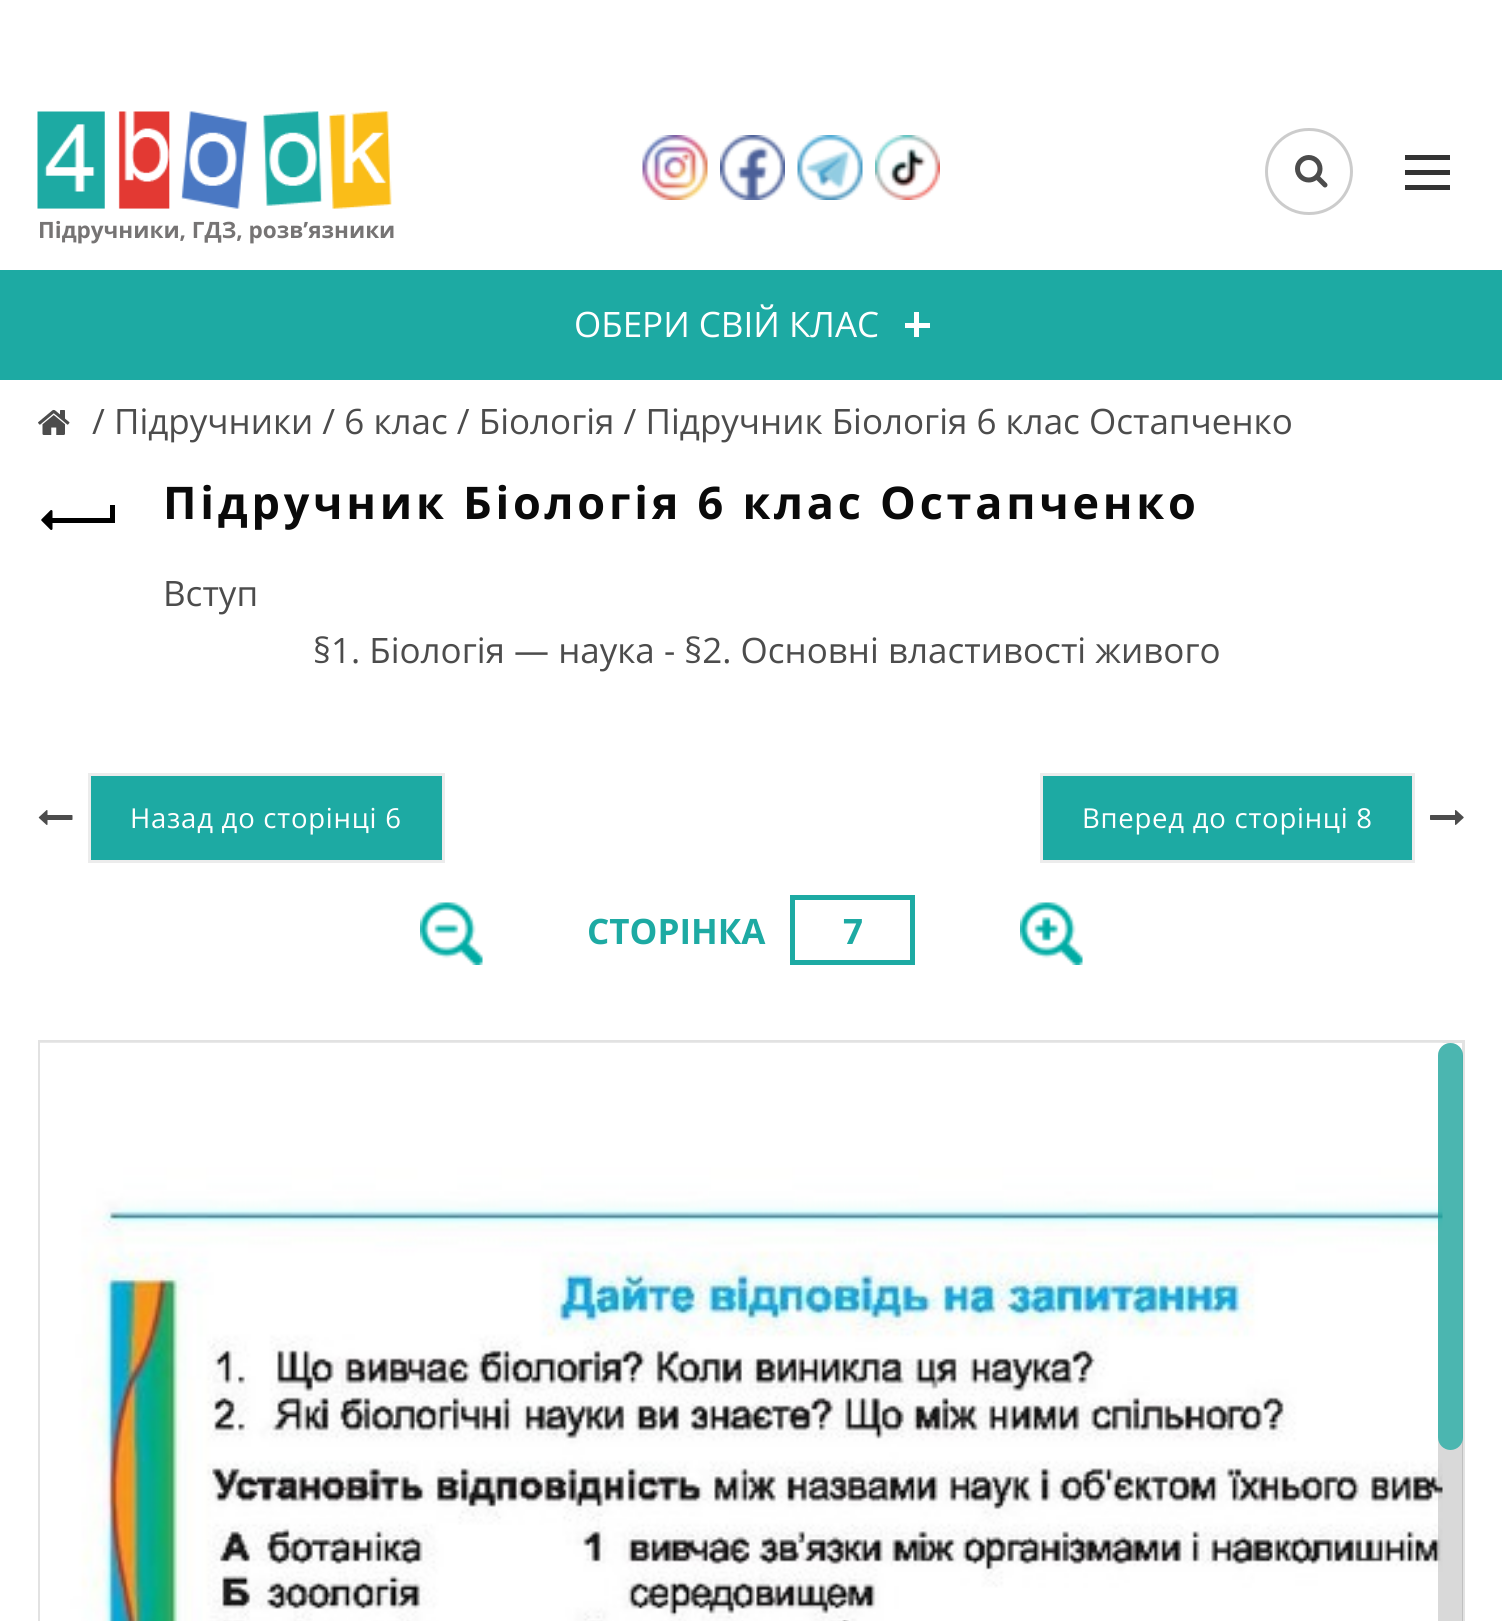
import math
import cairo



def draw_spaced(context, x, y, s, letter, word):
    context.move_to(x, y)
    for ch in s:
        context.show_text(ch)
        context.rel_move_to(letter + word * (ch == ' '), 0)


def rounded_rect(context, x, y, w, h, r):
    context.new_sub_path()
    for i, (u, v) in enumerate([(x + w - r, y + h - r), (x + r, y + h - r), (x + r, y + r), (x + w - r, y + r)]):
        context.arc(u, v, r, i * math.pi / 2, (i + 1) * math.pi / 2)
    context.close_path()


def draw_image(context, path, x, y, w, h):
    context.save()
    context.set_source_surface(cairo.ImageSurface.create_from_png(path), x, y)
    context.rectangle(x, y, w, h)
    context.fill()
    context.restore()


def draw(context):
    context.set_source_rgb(1, 1, 1)
    context.paint()
    draw_image(context, "images/1.png", 642, 135, 66, 65)
    draw_image(context, "images/2.png", 720, 135, 65, 65)
    draw_image(context, "images/3.png", 797, 135, 66, 65)
    draw_image(context, "images/4.png", 875, 135, 65, 65)
    draw_image(context, "images/5.png", 1295, 155, 33, 33)
    rounded_rect(context, 1266.5, 129.5, 85, 84, 42)
    context.set_source_rgb(204 / 255, 204 / 255, 204 / 255)
    context.set_line_width(3)
    context.stroke()
    context.set_source_rgb(51 / 255, 51 / 255, 51 / 255)
    context.rectangle(1405, 170, 45, 5)
    context.fill()
    context.rectangle(1405, 155, 45, 5)
    context.fill()
    context.rectangle(1405, 185, 45, 5)
    context.fill()
    draw_image(context, "images/6.png", 37, 111, 355, 98)
    context.set_source_rgb(29 / 255, 170 / 255, 163 / 255)
    context.rectangle(0, 270, 1502, 110)
    context.fill()
    context.set_source_rgb(1, 1, 1)
    context.rectangle(914, 312, 5, 25)
    context.fill()
    context.rectangle(905, 323, 25, 5)
    context.fill()
    draw_image(context, "images/7.png", 38, 409, 32, 26)
    context.set_source_rgb(0, 0, 0)
    context.rectangle(50, 518, 63, 5)
    context.fill()
    draw_image(context, "images/8.png", 41, 510, 12, 20)
    context.rectangle(110, 505, 5, 18)
    context.fill()
    draw_image(context, "images/9.png", 38, 810, 35, 15)
    context.set_source_rgb(29 / 255, 170 / 255, 163 / 255)
    context.rectangle(89.5, 774.5, 354, 87)
    context.fill_preserve()
    context.set_source_rgb(236 / 255, 236 / 255, 236 / 255)
    context.stroke()
    context.set_source_rgb(29 / 255, 170 / 255, 163 / 255)
    context.rectangle(1041.5, 774.5, 372, 87)
    context.fill_preserve()
    context.set_source_rgb(236 / 255, 236 / 255, 236 / 255)
    context.stroke()
    draw_image(context, "images/10.png", 1430, 810, 34, 15)
    draw_image(context, "images/11.png", 420, 902, 63, 63)
    context.rectangle(792.5, 897.5, 120, 65)
    context.set_source_rgb(29 / 255, 170 / 255, 163 / 255)
    context.set_line_width(5)
    context.stroke()
    draw_image(context, "images/12.png", 1020, 902, 63, 63)
    context.rectangle(39.5, 1041.5, 1424, 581)
    context.set_source_rgb(226 / 255, 226 / 255, 226 / 255)
    context.set_line_width(3)
    context.stroke()
    draw_image(context, "images/13.png", 40, 1042, 1403, 579)
    context.set_source_rgba(0, 0, 0, 0.15)
    rounded_rect(context, 1438, 1043, 25, 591, 12.5)
    context.fill()
    context.set_source_rgba(29 / 255, 170 / 255, 163 / 255, 0.75)
    rounded_rect(context, 1438, 1043, 25, 407, 12.5)
    context.fill()
    context.select_font_face("Open Sans", cairo.FontSlant.NORMAL, cairo.FontWeight.BOLD)
    context.set_font_size(22.5)
    context.set_source_rgb(118 / 255, 116 / 255, 116 / 255)
    context.move_to(38, 238)
    context.show_text("Підручники, ГДЗ, розв’язники")
    context.select_font_face("Open Sans")
    context.set_font_size(35)
    context.set_source_rgb(1, 1, 1)
    context.move_to(574, 337)
    context.show_text("ОБЕРИ СВІЙ КЛАС")
    context.set_source_rgb(76 / 255, 76 / 255, 76 / 255)
    context.move_to(92, 434)
    context.show_text("/ Підручники / 6 клас / Біологія / Підручник Біологія 6 клас Остапченко")
    context.select_font_face("Open Sans", cairo.FontSlant.NORMAL, cairo.FontWeight.BOLD)
    context.set_font_size(45)
    context.set_source_rgb(10 / 255, 10 / 255, 10 / 255)
    draw_spaced(context, 163, 519, "Підручник Біологія 6 клас Остапченко", 3.75, 0)
    context.select_font_face("Open Sans")
    context.set_font_size(35)
    context.set_source_rgb(76 / 255, 76 / 255, 76 / 255)
    context.move_to(163, 606)
    context.show_text("Вступ")
    context.move_to(313, 663)
    context.show_text("§1. Біологія — наука - §2. Основні властивості живого")
    context.set_font_size(27.5)
    context.set_source_rgb(1, 1, 1)
    draw_spaced(context, 130, 828, "Назад до сторінці 6", 0.75, 0)
    draw_spaced(context, 1082, 828, "Вперед до сторінці 8", 0.75, 0)
    context.select_font_face("Open Sans", cairo.FontSlant.NORMAL, cairo.FontWeight.BOLD)
    context.set_font_size(35)
    context.set_source_rgb(29 / 255, 170 / 255, 163 / 255)
    context.move_to(587, 944)
    context.show_text("СТОРІНКА")
    context.move_to(843, 944)
    context.show_text("7")


surface = cairo.ImageSurface(cairo.Format.RGB24, 1502, 1621)
context = cairo.Context(surface)
options = cairo.FontOptions()
options.set_hint_metrics(cairo.HintMetrics.OFF)
options.set_hint_style(cairo.HintStyle.NONE)
context.set_font_options(options)
context.set_miter_limit(4)
draw(context)
surface.write_to_png("out.png")
